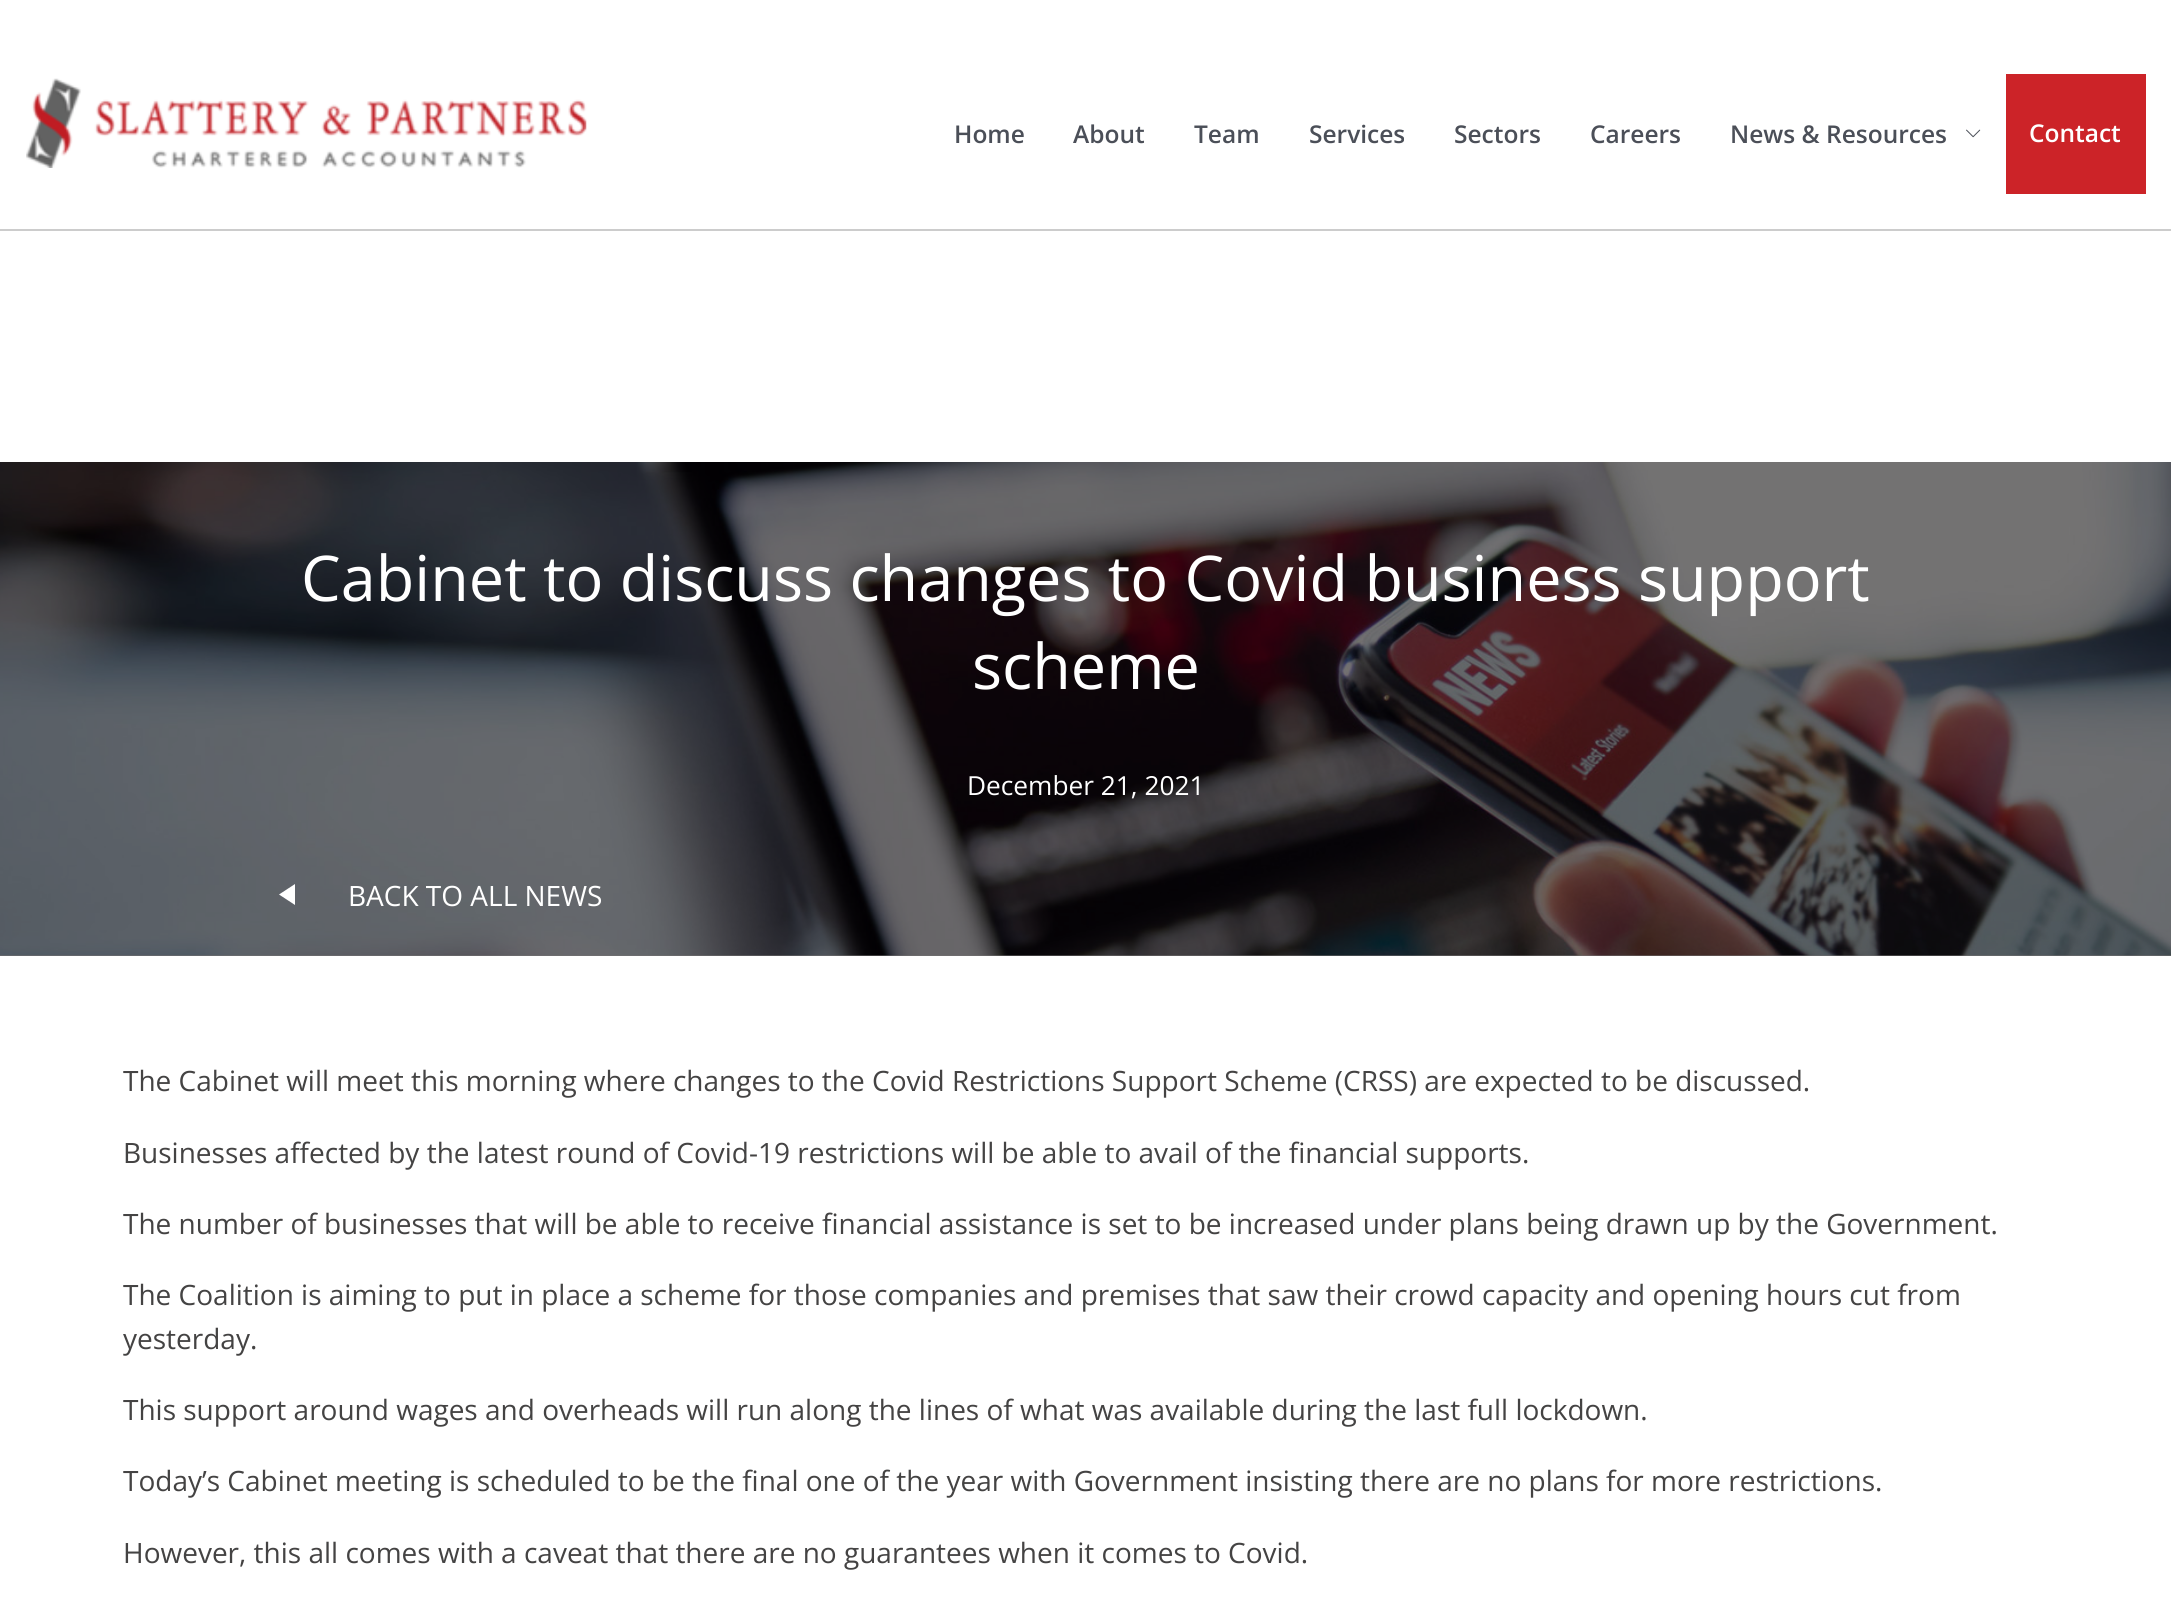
import math
import cairo



def draw_image(context, path, x, y, w, h):
    context.save()
    context.set_source_surface(cairo.ImageSurface.create_from_png(path), x, y)
    context.rectangle(x, y, w, h)
    context.fill()
    context.restore()


def draw(context):
    context.set_source_rgb(1, 1, 1)
    context.paint()
    context.set_source_rgb(116 / 255, 115 / 255, 115 / 255)
    context.rectangle(0, 955, 2171, 1)
    context.fill()
    context.set_source_rgb(204 / 255, 204 / 255, 204 / 255)
    context.rectangle(0, 229, 2171, 2)
    context.fill()
    draw_image(context, "images/1.png", 26, 78, 561, 90)
    draw_image(context, "images/2.png", 1966, 129, 15, 9)
    context.set_source_rgb(204 / 255, 35 / 255, 40 / 255)
    context.rectangle(2006, 74, 140, 120)
    context.fill()
    draw_image(context, "images/3.png", 0, 462, 2171, 494)
    context.set_source_rgb(1, 1, 1)
    context.new_path()
    context.move_to(295, 905)
    context.line_to(279, 894.5)
    context.line_to(295, 884)
    context.close_path()
    context.fill()
    context.select_font_face("Open Sans SemiBold")
    context.set_font_size(24.5)
    context.set_source_rgb(75 / 255, 79 / 255, 88 / 255)
    context.move_to(954, 143)
    context.show_text("Home")
    context.move_to(1073, 143)
    context.show_text("About")
    context.move_to(1194, 143)
    context.show_text("Team")
    context.move_to(1309, 143)
    context.show_text("Services")
    context.move_to(1454, 143)
    context.show_text("Sectors")
    context.move_to(1590, 143)
    context.show_text("Careers")
    context.move_to(1730, 143)
    context.show_text("News & Resources")
    context.set_source_rgb(1, 1, 1)
    context.move_to(2029, 142)
    context.show_text("Contact")
    context.select_font_face("Open Sans")
    context.set_font_size(63)
    context.move_to(301, 601)
    context.show_text("Cabinet to discuss changes to Covid business support")
    context.move_to(972, 689)
    context.show_text("scheme")
    context.set_font_size(26.25)
    context.move_to(967, 795)
    context.show_text("December 21, 2021")
    context.set_font_size(28)
    context.move_to(348, 906)
    context.show_text("BACK TO ALL NEWS")
    context.set_source_rgb(68 / 255, 67 / 255, 67 / 255)
    context.move_to(123, 1091)
    context.show_text("The Cabinet will meet this morning where changes to the Covid Restrictions Support Scheme (CRSS) are expected to be discussed.")
    context.move_to(123, 1163)
    context.show_text("Businesses affected by the latest round of Covid-19 restrictions will be able to avail of the financial supports.")
    context.move_to(123, 1234)
    context.show_text("The number of businesses that will be able to receive financial assistance is set to be increased under plans being drawn up by the Government.")
    context.move_to(123, 1305)
    context.show_text("The Coalition is aiming to put in place a scheme for those companies and premises that saw their crowd capacity and opening hours cut from")
    context.move_to(123, 1349)
    context.show_text("yesterday.")
    context.move_to(123, 1420)
    context.show_text("This support around wages and overheads will run along the lines of what was available during the last full lockdown.")
    context.move_to(123, 1491)
    context.show_text("Today’s Cabinet meeting is scheduled to be the final one of the year with Government insisting there are no plans for more restrictions.")
    context.move_to(123, 1563)
    context.show_text("However, this all comes with a caveat that there are no guarantees when it comes to Covid.")


surface = cairo.ImageSurface(cairo.Format.RGB24, 2171, 1604)
context = cairo.Context(surface)
options = cairo.FontOptions()
options.set_hint_metrics(cairo.HintMetrics.OFF)
options.set_hint_style(cairo.HintStyle.NONE)
context.set_font_options(options)
context.set_miter_limit(4)
draw(context)
surface.write_to_png("out.png")
